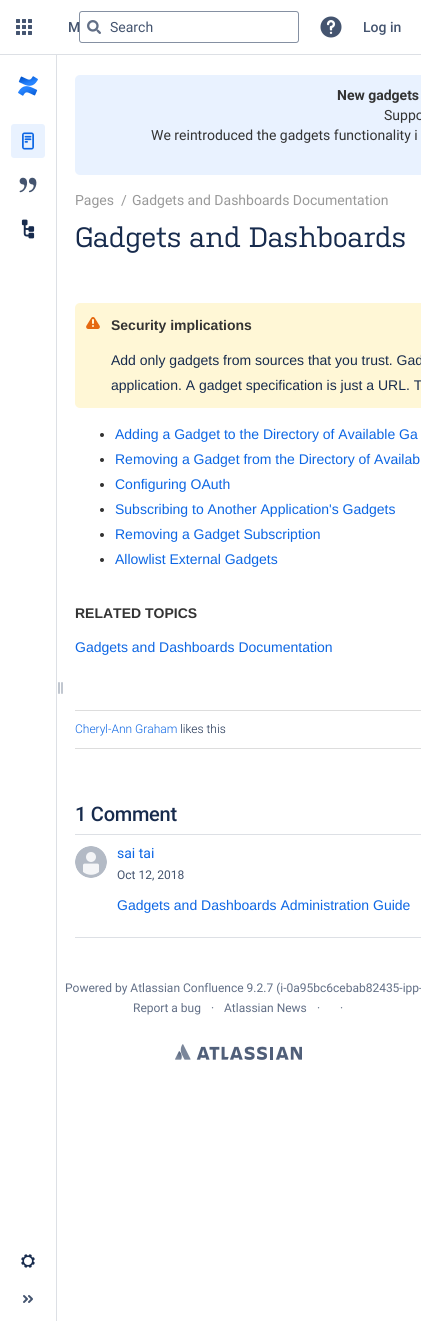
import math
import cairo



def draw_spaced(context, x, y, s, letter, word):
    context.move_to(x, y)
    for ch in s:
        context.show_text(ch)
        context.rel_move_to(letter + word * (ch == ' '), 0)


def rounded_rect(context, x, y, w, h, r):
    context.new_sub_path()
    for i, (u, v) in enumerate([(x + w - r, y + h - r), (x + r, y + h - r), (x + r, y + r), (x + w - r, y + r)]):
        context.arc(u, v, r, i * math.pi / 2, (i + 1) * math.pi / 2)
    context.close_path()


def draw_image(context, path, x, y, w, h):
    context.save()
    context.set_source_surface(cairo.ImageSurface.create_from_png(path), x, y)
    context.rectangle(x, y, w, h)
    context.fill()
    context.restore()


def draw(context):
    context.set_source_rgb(1, 1, 1)
    context.paint()
    context.set_source_rgb(221 / 255, 224 / 255, 229 / 255)
    context.rectangle(0, 54, 421, 1)
    context.fill()
    draw_image(context, "images/1.png", 16, 19, 16, 16)
    draw_image(context, "images/3.png", 320, 16, 22, 22)
    draw_image(context, "images/4.png", 18, 76, 20, 20)
    context.set_source_rgb(233 / 255, 242 / 255, 1)
    rounded_rect(context, 11, 124, 34, 34, 3)
    context.fill()
    draw_image(context, "images/5.png", 22, 132, 12, 18)
    draw_image(context, "images/6.png", 19, 177, 18, 16)
    draw_image(context, "images/7.png", 21, 219, 14, 20)
    draw_image(context, "images/8.png", 58, 682, 5, 12)
    context.set_source_rgb(221 / 255, 224 / 255, 229 / 255)
    context.rectangle(56, 55, 1, 1266)
    context.fill()
    draw_image(context, "images/9.png", 21, 1254, 14, 14)
    draw_image(context, "images/10.png", 23, 1295, 10, 8)
    context.set_source_rgb(233 / 255, 242 / 255, 1)
    rounded_rect(context, 75, 75, 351, 100, 5)
    context.fill()
    context.set_source_rgb(1, 247 / 255, 214 / 255)
    rounded_rect(context, 75, 303, 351, 105, 5)
    context.fill()
    draw_image(context, "images/11.png", 86, 317, 14, 12)
    context.set_source_rgb(51 / 255, 51 / 255, 51 / 255)
    context.arc(102, 435, 2, 0, 2 * math.pi)
    context.fill()
    context.arc(102, 460, 2, 0, 2 * math.pi)
    context.fill()
    context.arc(102, 485, 2, 0, 2 * math.pi)
    context.fill()
    context.arc(102, 510, 2, 0, 2 * math.pi)
    context.fill()
    context.arc(102, 535, 2, 0, 2 * math.pi)
    context.fill()
    context.arc(102, 560, 2, 0, 2 * math.pi)
    context.fill()
    context.set_source_rgb(221 / 255, 221 / 255, 221 / 255)
    context.rectangle(75, 710, 346, 1)
    context.fill()
    context.rectangle(75, 748, 346, 1)
    context.fill()
    context.set_source_rgb(221 / 255, 224 / 255, 229 / 255)
    context.rectangle(75, 937, 346, 1)
    context.fill()
    context.rectangle(75, 834, 346, 1)
    context.fill()
    draw_image(context, "images/12.png", 75, 846, 32, 32)
    draw_image(context, "images/13.png", 175, 1044, 127, 16)
    context.select_font_face("Roboto Medium")
    context.set_font_size(14)
    context.set_source_rgb(68 / 255, 84 / 255, 111 / 255)
    context.move_to(68, 32)
    context.show_text("M")
    context.set_source_rgb(1, 1, 1)
    rounded_rect(context, 79.5, 11.5, 219, 31, 2.5)
    context.fill_preserve()
    context.set_source_rgb(133 / 255, 144 / 255, 162 / 255)
    context.set_line_width(1)
    context.stroke()
    draw_image(context, "images/2.png", 87, 20, 14, 14)
    context.select_font_face("Roboto")
    context.set_source_rgb(68 / 255, 84 / 255, 111 / 255)
    context.move_to(110, 32)
    context.show_text("Search")
    context.select_font_face("Roboto Medium")
    context.move_to(363, 32)
    context.show_text("Log in")
    context.select_font_face("Roboto", cairo.FontSlant.NORMAL, cairo.FontWeight.BOLD)
    context.set_source_rgb(51 / 255, 51 / 255, 51 / 255)
    context.move_to(337, 100)
    context.show_text("New gadgets")
    context.select_font_face("Roboto")
    context.move_to(384, 120)
    context.show_text("Suppo")
    context.move_to(151, 140)
    context.show_text("We reintroduced the gadgets functionality i")
    context.set_source_rgb(153 / 255, 153 / 255, 153 / 255)
    context.move_to(75, 205)
    context.show_text("Pages")
    context.move_to(121, 205)
    context.show_text("/")
    context.move_to(132, 205)
    context.show_text("Gadgets and Dashboards Documentation")
    context.select_font_face("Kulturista")
    context.set_font_size(28)
    context.set_source_rgb(23 / 255, 43 / 255, 77 / 255)
    draw_spaced(context, 75, 247, "Gadgets and Dashboards", -0.25, 0)
    context.select_font_face("Liberation Sans", cairo.FontSlant.NORMAL, cairo.FontWeight.BOLD)
    context.set_font_size(14)
    context.set_source_rgb(51 / 255, 51 / 255, 51 / 255)
    context.move_to(111, 330)
    context.show_text("Security implications")
    context.select_font_face("Liberation Sans")
    context.set_source_rgb(23 / 255, 43 / 255, 77 / 255)
    context.move_to(111, 365)
    context.show_text("Add only gadgets from sources that you trust. Gad")
    context.move_to(111, 390)
    context.show_text("application. A gadget specification is just a URL. T")
    context.set_source_rgb(12 / 255, 102 / 255, 228 / 255)
    context.move_to(115, 439)
    context.show_text("Adding a Gadget to the Directory of Available Ga")
    context.move_to(115, 464)
    context.show_text("Removing a Gadget from the Directory of Availab")
    context.move_to(115, 489)
    context.show_text("Configuring OAuth")
    context.move_to(115, 514)
    context.show_text("Subscribing to Another Application's Gadgets")
    context.move_to(115, 539)
    context.show_text("Removing a Gadget Subscription")
    context.move_to(115, 564)
    context.show_text("Allowlist External Gadgets")
    context.select_font_face("Liberation Sans", cairo.FontSlant.NORMAL, cairo.FontWeight.BOLD)
    context.set_source_rgb(51 / 255, 51 / 255, 51 / 255)
    context.move_to(75, 618)
    context.show_text("RELATED TOPICS")
    context.select_font_face("Liberation Sans")
    context.set_source_rgb(12 / 255, 102 / 255, 228 / 255)
    context.move_to(75, 652)
    context.show_text("Gadgets and Dashboards Documentation")
    context.select_font_face("Roboto Light")
    context.set_font_size(12)
    context.move_to(75, 733)
    context.show_text("Cheryl-Ann Graham")
    context.set_source_rgb(23 / 255, 43 / 255, 77 / 255)
    context.move_to(180, 733)
    context.show_text("likes this")
    context.select_font_face("Roboto Medium")
    context.set_font_size(20)
    draw_spaced(context, 75, 821, "1 Comment", -0.25, 0)
    context.select_font_face("Roboto")
    context.set_font_size(14)
    context.set_source_rgb(12 / 255, 102 / 255, 228 / 255)
    context.move_to(117, 858)
    context.show_text("sai tai")
    context.set_font_size(12)
    context.set_source_rgb(68 / 255, 84 / 255, 111 / 255)
    context.move_to(117, 879)
    context.show_text("Oct 12, 2018")
    context.select_font_face("Liberation Sans")
    context.set_font_size(14)
    context.set_source_rgb(12 / 255, 102 / 255, 228 / 255)
    context.move_to(117, 910)
    context.show_text("Gadgets and Dashboards Administration Guide")
    context.select_font_face("Roboto")
    context.set_font_size(12)
    context.set_source_rgb(98 / 255, 111 / 255, 134 / 255)
    context.move_to(65, 992)
    context.show_text("Powered by Atlassian Confluence 9.2.7 (i-0a95bc6cebab82435-ipp-")
    context.move_to(133, 1012)
    context.show_text("Report a bug")
    context.move_to(211, 1012)
    context.show_text("·")
    context.move_to(224, 1012)
    context.show_text("Atlassian News")
    context.move_to(317, 1012)
    context.show_text("·")
    context.move_to(340, 1012)
    context.show_text("·")


surface = cairo.ImageSurface(cairo.Format.RGB24, 421, 1321)
context = cairo.Context(surface)
options = cairo.FontOptions()
options.set_hint_metrics(cairo.HintMetrics.OFF)
options.set_hint_style(cairo.HintStyle.NONE)
context.set_font_options(options)
context.set_miter_limit(4)
draw(context)
surface.write_to_png("out.png")
